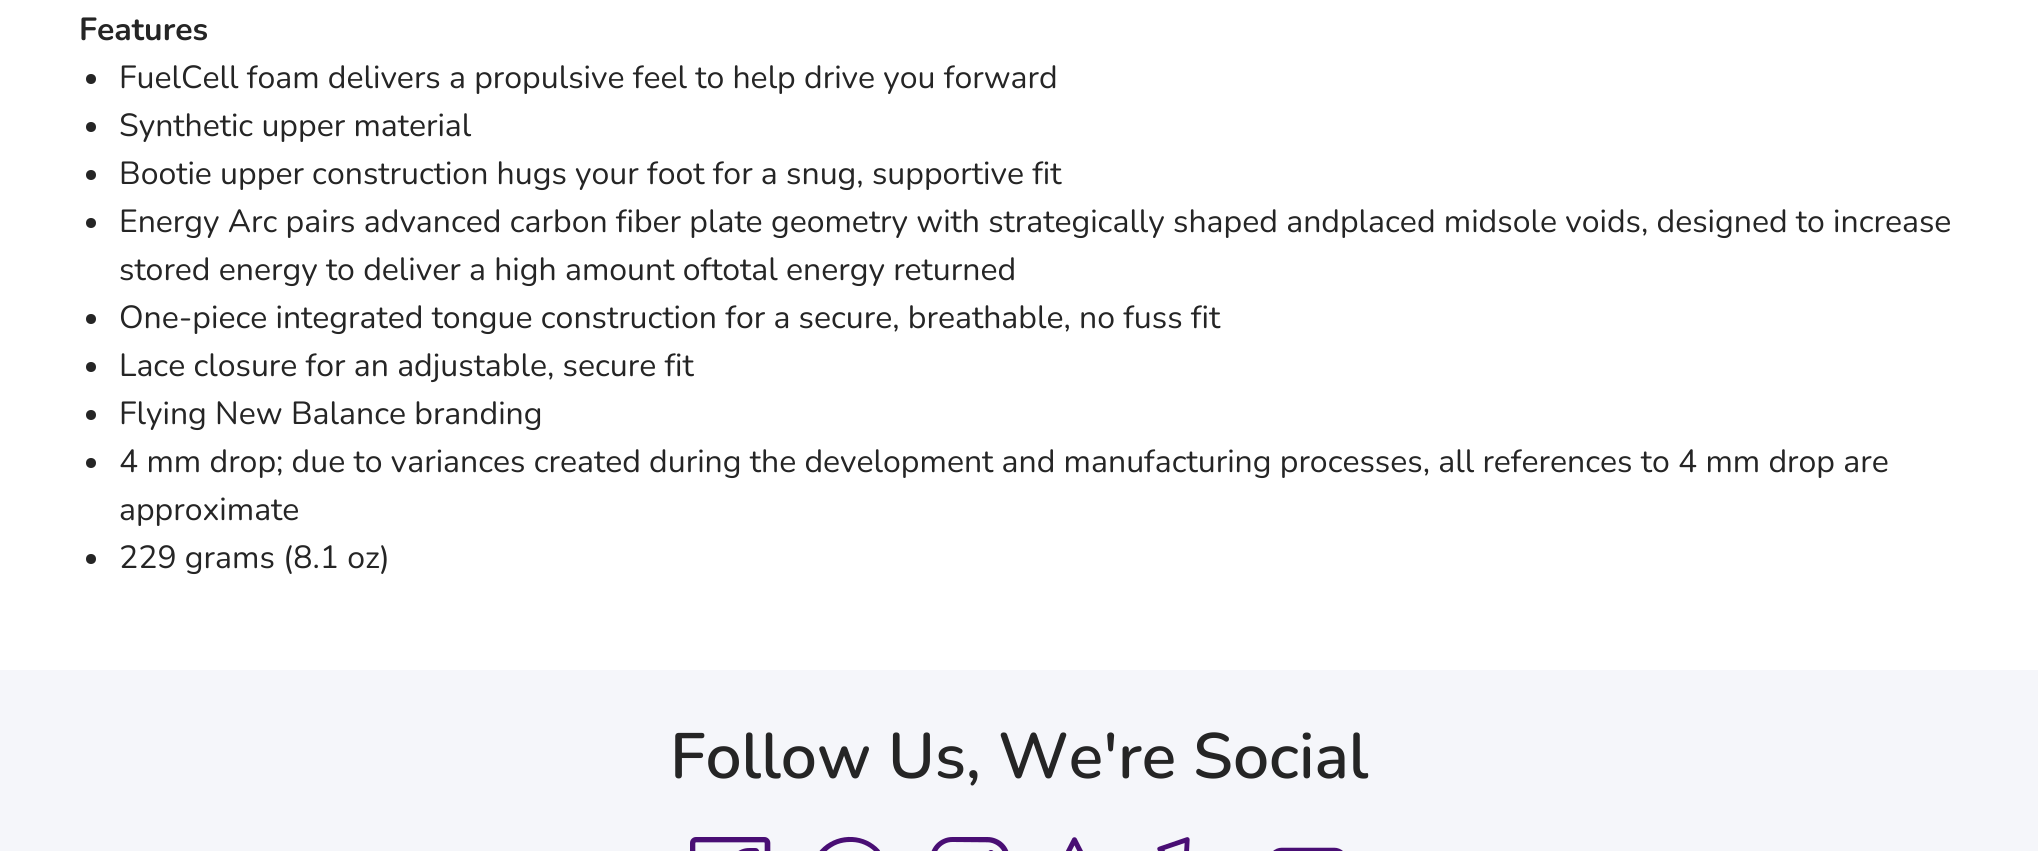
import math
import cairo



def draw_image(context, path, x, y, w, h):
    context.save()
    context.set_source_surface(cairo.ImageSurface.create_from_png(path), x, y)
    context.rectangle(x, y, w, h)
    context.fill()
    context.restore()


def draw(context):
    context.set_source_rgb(1, 1, 1)
    context.paint()
    context.set_source_rgb(37 / 255, 37 / 255, 37 / 255)
    context.arc(91, 79, 5, 0, 2 * math.pi)
    context.fill()
    context.arc(91, 127, 5, 0, 2 * math.pi)
    context.fill()
    context.arc(91, 175, 5, 0, 2 * math.pi)
    context.fill()
    context.arc(91, 223, 5, 0, 2 * math.pi)
    context.fill()
    context.arc(91, 319, 5, 0, 2 * math.pi)
    context.fill()
    context.arc(91, 367, 5, 0, 2 * math.pi)
    context.fill()
    context.arc(91, 415, 5, 0, 2 * math.pi)
    context.fill()
    context.arc(91, 463, 5, 0, 2 * math.pi)
    context.fill()
    context.arc(91, 559, 5, 0, 2 * math.pi)
    context.fill()
    context.set_source_rgb(245 / 255, 246 / 255, 250 / 255)
    context.rectangle(0, 670, 2038, 181)
    context.fill()
    draw_image(context, "images/1.png", 690, 837, 81, 14)
    draw_image(context, "images/2.png", 819, 836, 61, 15)
    draw_image(context, "images/3.png", 931, 837, 78, 14)
    draw_image(context, "images/4.png", 1066, 837, 17, 14)
    draw_image(context, "images/5.png", 1157, 837, 33, 14)
    draw_image(context, "images/6.png", 1273, 847, 70, 4)
    context.select_font_face("Nunito", cairo.FontSlant.NORMAL, cairo.FontWeight.BOLD)
    context.set_font_size(32)
    context.set_source_rgb(37 / 255, 37 / 255, 37 / 255)
    context.move_to(79, 40)
    context.show_text("Features")
    context.select_font_face("Nunito")
    context.move_to(119, 88)
    context.show_text("FuelCell foam delivers a propulsive feel to help drive you forward")
    context.move_to(119, 136)
    context.show_text("Synthetic upper material")
    context.move_to(119, 184)
    context.show_text("Bootie upper construction hugs your foot for a snug, supportive fit")
    context.move_to(119, 232)
    context.show_text("Energy Arc pairs advanced carbon fiber plate geometry with strategically shaped andplaced midsole voids, designed to increase")
    context.move_to(119, 280)
    context.show_text("stored energy to deliver a high amount oftotal energy returned")
    context.move_to(119, 328)
    context.show_text("One-piece integrated tongue construction for a secure, breathable, no fuss fit")
    context.move_to(119, 376)
    context.show_text("Lace closure for an adjustable, secure fit")
    context.move_to(119, 424)
    context.show_text("Flying New Balance branding")
    context.move_to(119, 472)
    context.show_text("4 mm drop; due to variances created during the development and manufacturing processes, all references to 4 mm drop are")
    context.move_to(119, 520)
    context.show_text("approximate")
    context.move_to(119, 568)
    context.show_text("229 grams (8.1 oz)")
    context.select_font_face("Nunito SemiBold")
    context.set_font_size(64)
    context.move_to(670, 778)
    context.show_text("Follow Us, We're Social")


surface = cairo.ImageSurface(cairo.Format.RGB24, 2038, 851)
context = cairo.Context(surface)
options = cairo.FontOptions()
options.set_hint_metrics(cairo.HintMetrics.OFF)
options.set_hint_style(cairo.HintStyle.NONE)
context.set_font_options(options)
context.set_miter_limit(4)
draw(context)
surface.write_to_png("out.png")
